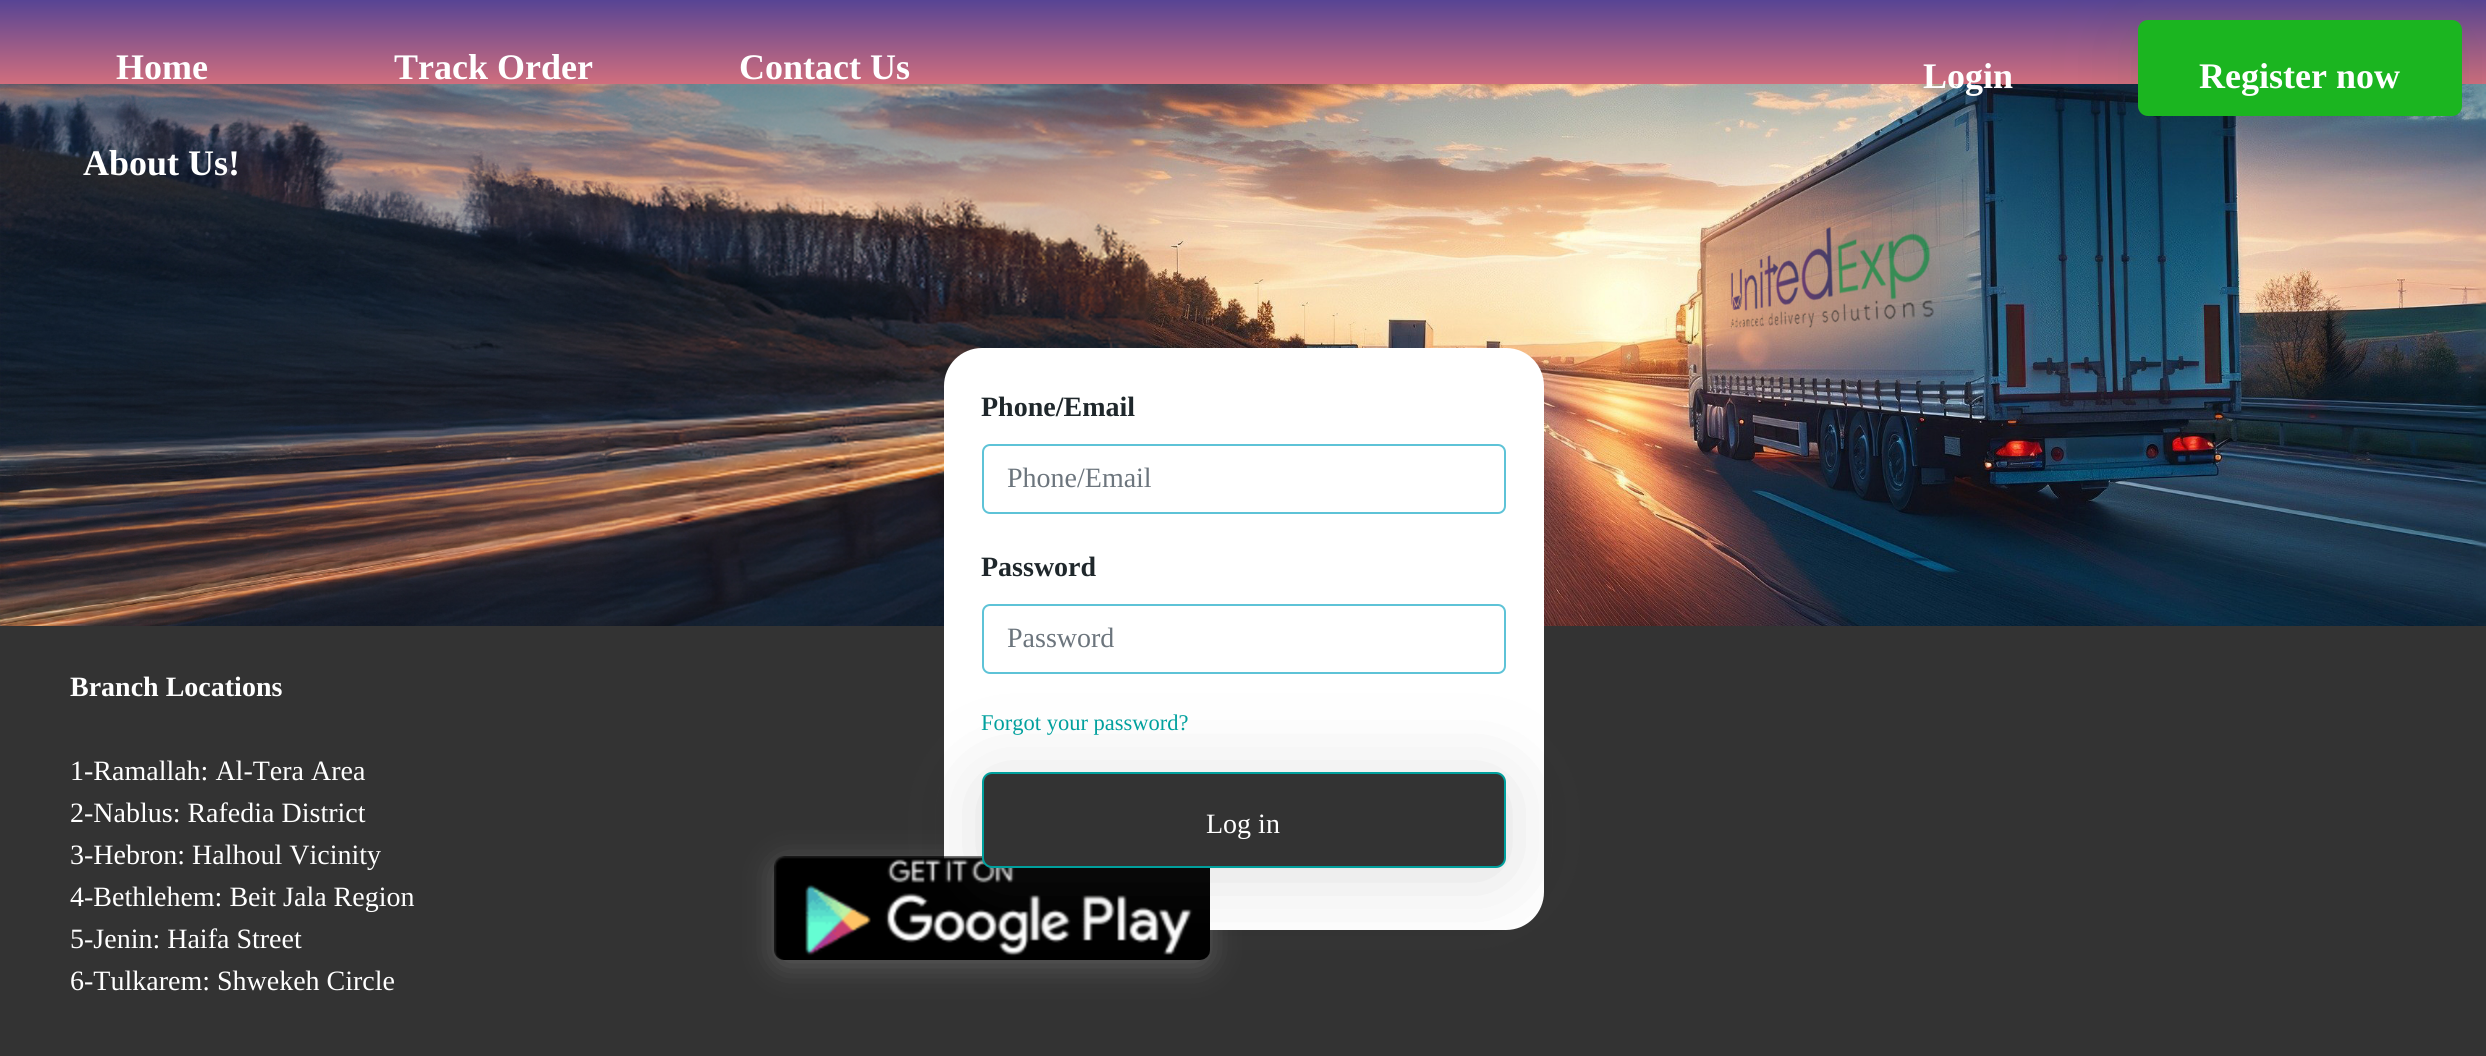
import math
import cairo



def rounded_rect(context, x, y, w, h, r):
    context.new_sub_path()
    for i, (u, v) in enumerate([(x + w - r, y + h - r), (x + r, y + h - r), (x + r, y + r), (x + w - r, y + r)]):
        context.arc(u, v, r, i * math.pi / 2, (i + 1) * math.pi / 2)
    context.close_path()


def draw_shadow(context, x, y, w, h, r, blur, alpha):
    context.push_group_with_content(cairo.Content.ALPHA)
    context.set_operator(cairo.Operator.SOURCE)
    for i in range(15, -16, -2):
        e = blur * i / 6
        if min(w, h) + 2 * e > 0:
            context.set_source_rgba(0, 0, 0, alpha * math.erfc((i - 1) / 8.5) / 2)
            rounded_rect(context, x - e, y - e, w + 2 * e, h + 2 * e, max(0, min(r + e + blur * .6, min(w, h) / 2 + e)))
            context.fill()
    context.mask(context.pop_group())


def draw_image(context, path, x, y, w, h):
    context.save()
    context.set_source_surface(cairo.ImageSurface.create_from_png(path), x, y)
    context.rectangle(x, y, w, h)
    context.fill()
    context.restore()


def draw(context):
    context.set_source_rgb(1, 1, 1)
    context.paint()
    gradient = cairo.LinearGradient(1243, 0, 1243, 84)
    gradient.add_color_stop_rgba(0, 87 / 255, 68 / 255, 148 / 255, 1)
    gradient.add_color_stop_rgba(1, 209 / 255, 110 / 255, 125 / 255, 1)
    context.set_source(gradient)
    context.rectangle(0, 0, 2486, 84)
    context.fill()
    draw_image(context, "images/2.png", 0, 84, 2486, 542)
    context.set_source_rgb(78 / 255, 78 / 255, 78 / 255)
    draw_shadow(context, 2138, 28, 324, 96, 10, 40, 0.2)
    context.set_source_rgb(27 / 255, 181 / 255, 32 / 255)
    rounded_rect(context, 2138, 20, 324, 96, 10)
    context.fill()
    context.set_source_rgb(51 / 255, 51 / 255, 51 / 255)
    context.rectangle(0, 626, 2486, 430)
    context.fill()
    context.set_source_rgb(1, 1, 1)
    rounded_rect(context, 944, 348, 600, 582, 38)
    context.fill()
    context.save()
    context.set_fill_rule(cairo.FillRule.EVEN_ODD)
    context.new_path()
    context.move_to(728, 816)
    context.line_to(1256, 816)
    context.line_to(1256, 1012)
    context.line_to(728, 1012)
    context.close_path()
    context.move_to(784, 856)
    context.line_to(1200, 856)
    context.curve_to(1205.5, 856, 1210, 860.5, 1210, 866)
    context.line_to(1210, 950)
    context.curve_to(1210, 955.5, 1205.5, 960, 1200, 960)
    context.line_to(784, 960)
    context.curve_to(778.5, 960, 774, 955.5, 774, 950)
    context.line_to(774, 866)
    context.curve_to(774, 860.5, 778.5, 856, 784, 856)
    context.close_path()
    context.clip()
    context.set_source_rgb(1, 1, 1)
    draw_shadow(context, 774, 862, 436, 104, 10, 15, 0.2)
    context.restore()
    draw_image(context, "images/1.png", 774, 856, 436, 104)
    rounded_rect(context, 983, 445, 522, 68, 7)
    context.set_source_rgb(94 / 255, 195 / 255, 215 / 255)
    context.stroke()
    rounded_rect(context, 983, 605, 522, 68, 7)
    context.stroke()
    context.set_source_rgb(78 / 255, 78 / 255, 78 / 255)
    draw_shadow(context, 982, 780, 524, 96, 10, 40, 0.2)
    context.set_source_rgb(51 / 255, 51 / 255, 51 / 255)
    rounded_rect(context, 983, 773, 522, 94, 9)
    context.fill_preserve()
    context.set_source_rgb(0, 160 / 255, 157 / 255)
    context.stroke()
    context.select_font_face("Liberation Serif", cairo.FontSlant.NORMAL, cairo.FontWeight.BOLD)
    context.set_font_size(36)
    context.set_source_rgb(1, 1, 1)
    context.move_to(116, 79)
    context.show_text("Home")
    context.move_to(394, 79)
    context.show_text("Track Order")
    context.move_to(739, 79)
    context.show_text("Contact Us")
    context.move_to(83, 175)
    context.show_text("About Us!")
    context.move_to(1923, 88)
    context.show_text("Login")
    context.move_to(2199, 88)
    context.show_text("Register now")
    context.set_font_size(28)
    context.move_to(70, 696)
    context.show_text("Branch Locations")
    context.select_font_face("Liberation Serif")
    context.move_to(70, 780)
    context.show_text("1-Ramallah: Al-Tera Area")
    context.move_to(70, 822)
    context.show_text("2-Nablus: Rafedia District")
    context.move_to(70, 864)
    context.show_text("3-Hebron: Halhoul Vicinity")
    context.move_to(70, 906)
    context.show_text("4-Bethlehem: Beit Jala Region")
    context.move_to(70, 948)
    context.show_text("5-Jenin: Haifa Street")
    context.move_to(70, 990)
    context.show_text("6-Tulkarem: Shwekeh Circle")
    context.select_font_face("Liberation Serif", cairo.FontSlant.NORMAL, cairo.FontWeight.BOLD)
    context.set_source_rgb(31 / 255, 39 / 255, 43 / 255)
    context.move_to(981, 416)
    context.show_text("Phone/Email")
    context.select_font_face("Liberation Serif")
    context.set_source_rgb(108 / 255, 117 / 255, 125 / 255)
    context.move_to(1007, 487)
    context.show_text("Phone/Email")
    context.select_font_face("Liberation Serif", cairo.FontSlant.NORMAL, cairo.FontWeight.BOLD)
    context.set_source_rgb(31 / 255, 39 / 255, 43 / 255)
    context.move_to(981, 576)
    context.show_text("Password")
    context.select_font_face("Liberation Serif")
    context.set_source_rgb(108 / 255, 117 / 255, 125 / 255)
    context.move_to(1007, 647)
    context.show_text("Password")
    context.set_font_size(22.5)
    context.set_source_rgb(0, 160 / 255, 157 / 255)
    context.move_to(981, 730)
    context.show_text("Forgot your password?")
    context.set_font_size(28)
    context.set_source_rgb(1, 1, 1)
    context.move_to(1206, 833)
    context.show_text("Log in")


surface = cairo.ImageSurface(cairo.Format.RGB24, 2486, 1056)
context = cairo.Context(surface)
options = cairo.FontOptions()
options.set_hint_metrics(cairo.HintMetrics.OFF)
options.set_hint_style(cairo.HintStyle.NONE)
context.set_font_options(options)
context.set_miter_limit(4)
draw(context)
surface.write_to_png("out.png")
